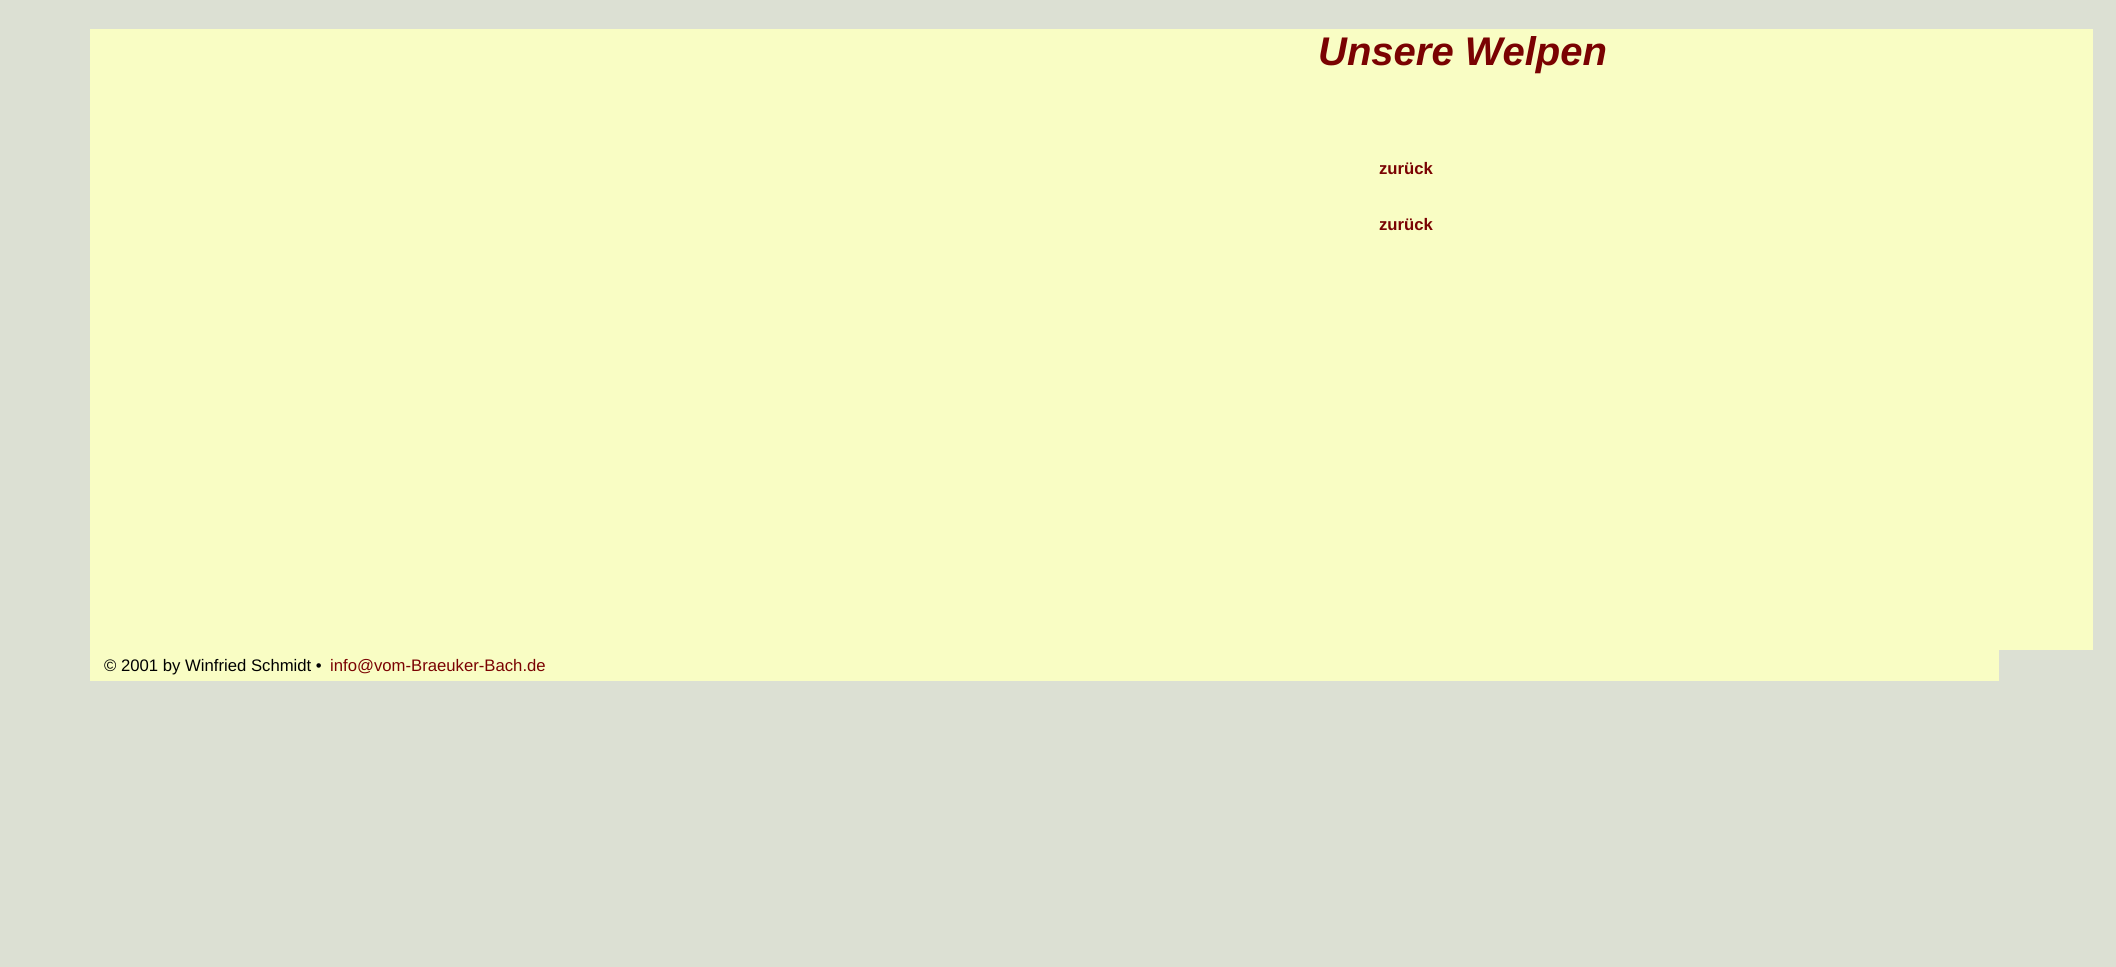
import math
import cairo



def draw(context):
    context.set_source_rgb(220 / 255, 224 / 255, 211 / 255)
    context.paint()
    context.set_source_rgb(249 / 255, 253 / 255, 196 / 255)
    context.rectangle(90, 29, 2003, 621)
    context.fill()
    context.rectangle(90, 650, 1909, 31)
    context.fill()
    context.select_font_face("Liberation Sans", cairo.FontSlant.ITALIC, cairo.FontWeight.BOLD)
    context.set_font_size(40)
    context.set_source_rgb(122 / 255, 2 / 255, 2 / 255)
    context.move_to(1318, 65)
    context.show_text("Unsere Welpen")
    context.select_font_face("Liberation Sans", cairo.FontSlant.NORMAL, cairo.FontWeight.BOLD)
    context.set_font_size(16.7)
    context.move_to(1379, 174)
    context.show_text("zurück")
    context.move_to(1379, 230)
    context.show_text("zurück")
    context.select_font_face("Liberation Sans")
    context.set_source_rgb(0, 0, 0)
    context.move_to(104, 671)
    context.show_text("© 2001 by Winfried Schmidt •")
    context.set_source_rgb(122 / 255, 2 / 255, 2 / 255)
    context.move_to(330, 671)
    context.show_text("info@vom-Braeuker-Bach.de")


surface = cairo.ImageSurface(cairo.Format.RGB24, 2116, 967)
context = cairo.Context(surface)
options = cairo.FontOptions()
options.set_hint_metrics(cairo.HintMetrics.OFF)
options.set_hint_style(cairo.HintStyle.NONE)
context.set_font_options(options)
context.set_miter_limit(4)
draw(context)
surface.write_to_png("out.png")
